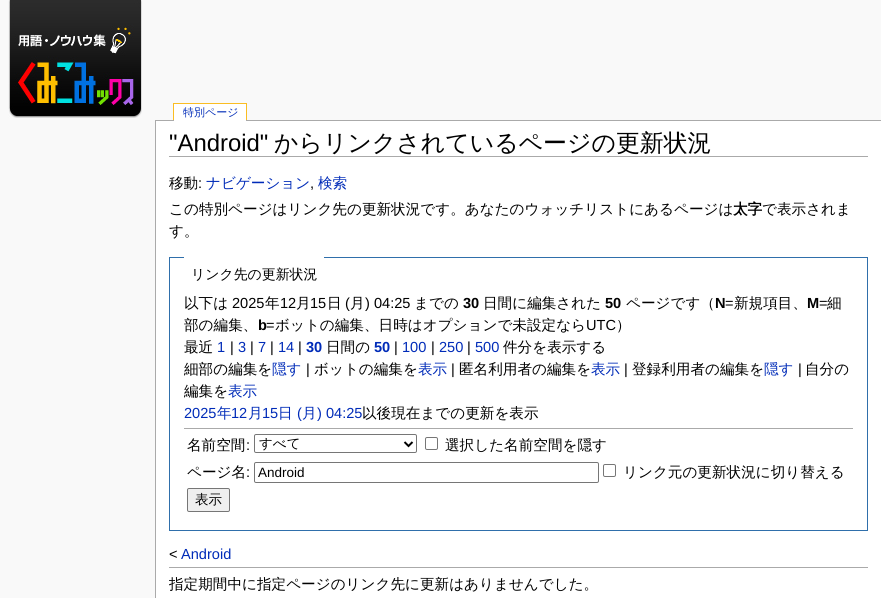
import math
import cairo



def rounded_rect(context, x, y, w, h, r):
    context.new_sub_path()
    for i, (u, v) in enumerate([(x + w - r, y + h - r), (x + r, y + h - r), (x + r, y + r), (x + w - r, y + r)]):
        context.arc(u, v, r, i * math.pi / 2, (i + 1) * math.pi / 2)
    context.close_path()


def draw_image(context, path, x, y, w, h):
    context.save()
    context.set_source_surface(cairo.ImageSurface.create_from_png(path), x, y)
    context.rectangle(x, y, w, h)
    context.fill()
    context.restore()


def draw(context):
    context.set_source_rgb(249 / 255, 249 / 255, 249 / 255)
    context.paint()
    draw_image(context, "images/1.png", 8, 0, 134, 118)
    context.set_source_rgb(1, 1, 1)
    context.rectangle(174, 104, 72, 2)
    context.fill()
    context.set_source_rgb(250 / 255, 189 / 255, 35 / 255)
    context.rectangle(173, 103, 74, 1)
    context.fill()
    context.rectangle(246, 103, 1, 17)
    context.fill()
    context.rectangle(173, 103, 1, 17)
    context.fill()
    context.set_source_rgb(170 / 255, 170 / 255, 170 / 255)
    context.rectangle(155, 120, 726, 1)
    context.fill()
    context.set_source_rgb(1, 1, 1)
    context.rectangle(174, 106, 72, 15)
    context.fill()
    context.rectangle(156, 121, 725, 477)
    context.fill()
    context.set_source_rgb(170 / 255, 170 / 255, 170 / 255)
    context.rectangle(155, 120, 1, 478)
    context.fill()
    context.rectangle(169, 156, 699, 1)
    context.fill()
    context.rectangle(169.5, 257.5, 698, 273)
    context.set_source_rgb(47 / 255, 111 / 255, 171 / 255)
    context.set_line_width(1)
    context.stroke()
    context.set_source_rgb(1, 1, 1)
    context.rectangle(184, 257, 140, 1)
    context.fill()
    context.set_source_rgb(170 / 255, 170 / 255, 170 / 255)
    context.rectangle(184, 428, 669, 1)
    context.fill()
    rounded_rect(context, 254.5, 434.5, 162, 18, 1.5)
    context.set_source_rgb(118 / 255, 118 / 255, 118 / 255)
    context.stroke()
    context.new_path()
    context.move_to(404.5, 442)
    context.line_to(408.5, 446)
    context.line_to(412.5, 442)
    context.set_source_rgb(0, 0, 0)
    context.set_line_width(2)
    context.stroke()
    rounded_rect(context, 425.5, 437.5, 12, 12, 1.5)
    context.set_source_rgb(118 / 255, 118 / 255, 118 / 255)
    context.set_line_width(1)
    context.stroke()
    rounded_rect(context, 254.5, 462.5, 344, 20, 1.5)
    context.stroke()
    rounded_rect(context, 603.5, 464.5, 12, 12, 1.5)
    context.stroke()
    context.set_source_rgb(239 / 255, 239 / 255, 239 / 255)
    rounded_rect(context, 187.5, 488.5, 42, 23, 1.5)
    context.fill_preserve()
    context.set_source_rgb(118 / 255, 118 / 255, 118 / 255)
    context.stroke()
    context.set_source_rgb(170 / 255, 170 / 255, 170 / 255)
    context.rectangle(169, 567, 699, 1)
    context.fill()
    context.select_font_face("WenQuanYi Zen Hei Medium")
    context.set_font_size(11)
    context.set_source_rgb(0, 43 / 255, 184 / 255)
    context.move_to(183, 116)
    context.show_text("特別ページ")
    context.select_font_face("Liberation Sans")
    context.set_font_size(23.9)
    context.set_source_rgb(0, 0, 0)
    context.move_to(169, 151)
    context.show_text("\"Android\"")
    context.select_font_face("WenQuanYi Zen Hei Medium")
    context.move_to(274, 151)
    context.show_text("からリンクされているページの更新状況")
    context.set_font_size(14.6)
    context.move_to(169, 188)
    context.show_text("移動")
    context.select_font_face("Liberation Sans")
    context.move_to(198, 188)
    context.show_text(":")
    context.select_font_face("WenQuanYi Zen Hei Medium")
    context.set_source_rgb(0, 43 / 255, 184 / 255)
    context.move_to(206, 188)
    context.show_text("ナビゲーション")
    context.select_font_face("Liberation Sans")
    context.set_source_rgb(0, 0, 0)
    context.move_to(310, 188)
    context.show_text(",")
    context.select_font_face("WenQuanYi Zen Hei Medium")
    context.set_source_rgb(0, 43 / 255, 184 / 255)
    context.move_to(318, 188)
    context.show_text("検索")
    context.set_source_rgb(0, 0, 0)
    context.move_to(169, 214)
    context.show_text("この特別ページはリンク先の更新状況です。あなたのウォッチリストにあるページは")
    context.select_font_face("WenQuanYi Zen Hei", cairo.FontSlant.NORMAL, cairo.FontWeight.BOLD)
    context.move_to(733, 214)
    context.show_text("太字")
    context.select_font_face("WenQuanYi Zen Hei Medium")
    context.move_to(762, 214)
    context.show_text("で表示されま")
    context.move_to(169, 236)
    context.show_text("す。")
    context.set_font_size(13.9)
    context.move_to(191, 279)
    context.show_text("リンク先の更新状況")
    context.set_font_size(14.6)
    context.move_to(184, 308)
    context.show_text("以下は")
    context.select_font_face("Liberation Sans")
    context.move_to(232, 308)
    context.show_text("2025")
    context.select_font_face("WenQuanYi Zen Hei Medium")
    context.move_to(265, 308)
    context.show_text("年")
    context.select_font_face("Liberation Sans")
    context.move_to(280, 308)
    context.show_text("12")
    context.select_font_face("WenQuanYi Zen Hei Medium")
    context.move_to(296, 308)
    context.show_text("月")
    context.select_font_face("Liberation Sans")
    context.move_to(310, 308)
    context.show_text("15")
    context.select_font_face("WenQuanYi Zen Hei Medium")
    context.move_to(327, 308)
    context.show_text("日")
    context.select_font_face("Liberation Sans")
    context.move_to(345, 308)
    context.show_text("(")
    context.select_font_face("WenQuanYi Zen Hei Medium")
    context.move_to(350, 308)
    context.show_text("月")
    context.select_font_face("Liberation Sans")
    context.move_to(365, 308)
    context.show_text(") 04:25")
    context.select_font_face("WenQuanYi Zen Hei Medium")
    context.move_to(414, 308)
    context.show_text("までの")
    context.select_font_face("Liberation Sans", cairo.FontSlant.NORMAL, cairo.FontWeight.BOLD)
    context.move_to(463, 308)
    context.show_text("30")
    context.select_font_face("WenQuanYi Zen Hei Medium")
    context.move_to(483, 308)
    context.show_text("日間に編集された")
    context.select_font_face("Liberation Sans", cairo.FontSlant.NORMAL, cairo.FontWeight.BOLD)
    context.move_to(605, 308)
    context.show_text("50")
    context.select_font_face("WenQuanYi Zen Hei Medium")
    context.move_to(626, 308)
    context.show_text("ページです（")
    context.select_font_face("Liberation Sans", cairo.FontSlant.NORMAL, cairo.FontWeight.BOLD)
    context.move_to(715, 308)
    context.show_text("N")
    context.select_font_face("Liberation Sans")
    context.move_to(725, 308)
    context.show_text("=")
    context.select_font_face("WenQuanYi Zen Hei Medium")
    context.move_to(734, 308)
    context.show_text("新規項目、")
    context.select_font_face("Liberation Sans", cairo.FontSlant.NORMAL, cairo.FontWeight.BOLD)
    context.move_to(807, 308)
    context.show_text("M")
    context.select_font_face("Liberation Sans")
    context.move_to(819, 308)
    context.show_text("=")
    context.select_font_face("WenQuanYi Zen Hei Medium")
    context.move_to(827, 308)
    context.show_text("細")
    context.move_to(184, 330)
    context.show_text("部の編集、")
    context.select_font_face("Liberation Sans", cairo.FontSlant.NORMAL, cairo.FontWeight.BOLD)
    context.move_to(258, 330)
    context.show_text("b")
    context.select_font_face("Liberation Sans")
    context.move_to(266, 330)
    context.show_text("=")
    context.select_font_face("WenQuanYi Zen Hei Medium")
    context.move_to(275, 330)
    context.show_text("ボットの編集、日時はオプションで未設定なら")
    context.select_font_face("Liberation Sans")
    context.move_to(586, 330)
    context.show_text("UTC")
    context.select_font_face("WenQuanYi Zen Hei Medium")
    context.move_to(616, 330)
    context.show_text("）")
    context.move_to(184, 352)
    context.show_text("最近")
    context.select_font_face("Liberation Sans")
    context.set_source_rgb(0, 43 / 255, 184 / 255)
    context.move_to(217, 352)
    context.show_text("1")
    context.set_source_rgb(0, 0, 0)
    context.move_to(230, 352)
    context.show_text("|")
    context.set_source_rgb(0, 43 / 255, 184 / 255)
    context.move_to(238, 352)
    context.show_text("3")
    context.set_source_rgb(0, 0, 0)
    context.move_to(250, 352)
    context.show_text("|")
    context.set_source_rgb(0, 43 / 255, 184 / 255)
    context.move_to(258, 352)
    context.show_text("7")
    context.set_source_rgb(0, 0, 0)
    context.move_to(270, 352)
    context.show_text("|")
    context.set_source_rgb(0, 43 / 255, 184 / 255)
    context.move_to(278, 352)
    context.show_text("14")
    context.set_source_rgb(0, 0, 0)
    context.move_to(298, 352)
    context.show_text("|")
    context.select_font_face("Liberation Sans", cairo.FontSlant.NORMAL, cairo.FontWeight.BOLD)
    context.set_source_rgb(0, 43 / 255, 184 / 255)
    context.move_to(306, 352)
    context.show_text("30")
    context.select_font_face("WenQuanYi Zen Hei Medium")
    context.set_source_rgb(0, 0, 0)
    context.move_to(326, 352)
    context.show_text("日間の")
    context.select_font_face("Liberation Sans", cairo.FontSlant.NORMAL, cairo.FontWeight.BOLD)
    context.set_source_rgb(0, 43 / 255, 184 / 255)
    context.move_to(374, 352)
    context.show_text("50")
    context.select_font_face("Liberation Sans")
    context.set_source_rgb(0, 0, 0)
    context.move_to(394, 352)
    context.show_text("|")
    context.set_source_rgb(0, 43 / 255, 184 / 255)
    context.move_to(402, 352)
    context.show_text("100")
    context.set_source_rgb(0, 0, 0)
    context.move_to(431, 352)
    context.show_text("|")
    context.set_source_rgb(0, 43 / 255, 184 / 255)
    context.move_to(439, 352)
    context.show_text("250")
    context.set_source_rgb(0, 0, 0)
    context.move_to(467, 352)
    context.show_text("|")
    context.set_source_rgb(0, 43 / 255, 184 / 255)
    context.move_to(475, 352)
    context.show_text("500")
    context.select_font_face("WenQuanYi Zen Hei Medium")
    context.set_source_rgb(0, 0, 0)
    context.move_to(503, 352)
    context.show_text("件分を表示する")
    context.move_to(184, 374)
    context.show_text("細部の編集を")
    context.set_source_rgb(0, 43 / 255, 184 / 255)
    context.move_to(272, 374)
    context.show_text("隠す")
    context.select_font_face("Liberation Sans")
    context.set_source_rgb(0, 0, 0)
    context.move_to(306, 374)
    context.show_text("|")
    context.select_font_face("WenQuanYi Zen Hei Medium")
    context.move_to(314, 374)
    context.show_text("ボットの編集を")
    context.set_source_rgb(0, 43 / 255, 184 / 255)
    context.move_to(418, 374)
    context.show_text("表示")
    context.select_font_face("Liberation Sans")
    context.set_source_rgb(0, 0, 0)
    context.move_to(451, 374)
    context.show_text("|")
    context.select_font_face("WenQuanYi Zen Hei Medium")
    context.move_to(459, 374)
    context.show_text("匿名利用者の編集を")
    context.set_source_rgb(0, 43 / 255, 184 / 255)
    context.move_to(591, 374)
    context.show_text("表示")
    context.select_font_face("Liberation Sans")
    context.set_source_rgb(0, 0, 0)
    context.move_to(624, 374)
    context.show_text("|")
    context.select_font_face("WenQuanYi Zen Hei Medium")
    context.move_to(632, 374)
    context.show_text("登録利用者の編集を")
    context.set_source_rgb(0, 43 / 255, 184 / 255)
    context.move_to(764, 374)
    context.show_text("隠す")
    context.select_font_face("Liberation Sans")
    context.set_source_rgb(0, 0, 0)
    context.move_to(798, 374)
    context.show_text("|")
    context.select_font_face("WenQuanYi Zen Hei Medium")
    context.move_to(805, 374)
    context.show_text("自分の")
    context.move_to(184, 396)
    context.show_text("編集を")
    context.set_source_rgb(0, 43 / 255, 184 / 255)
    context.move_to(228, 396)
    context.show_text("表示")
    context.select_font_face("Liberation Sans")
    context.move_to(184, 418)
    context.show_text("2025")
    context.select_font_face("WenQuanYi Zen Hei Medium")
    context.move_to(217, 418)
    context.show_text("年")
    context.select_font_face("Liberation Sans")
    context.move_to(231, 418)
    context.show_text("12")
    context.select_font_face("WenQuanYi Zen Hei Medium")
    context.move_to(248, 418)
    context.show_text("月")
    context.select_font_face("Liberation Sans")
    context.move_to(262, 418)
    context.show_text("15")
    context.select_font_face("WenQuanYi Zen Hei Medium")
    context.move_to(278, 418)
    context.show_text("日")
    context.select_font_face("Liberation Sans")
    context.move_to(297, 418)
    context.show_text("(")
    context.select_font_face("WenQuanYi Zen Hei Medium")
    context.move_to(302, 418)
    context.show_text("月")
    context.select_font_face("Liberation Sans")
    context.move_to(317, 418)
    context.show_text(") 04:25")
    context.select_font_face("WenQuanYi Zen Hei Medium")
    context.set_source_rgb(0, 0, 0)
    context.move_to(362, 418)
    context.show_text("以後現在までの更新を表示")
    context.move_to(187, 450)
    context.show_text("名前空間")
    context.select_font_face("Liberation Sans")
    context.move_to(246, 450)
    context.show_text(":")
    context.select_font_face("WenQuanYi Zen Hei Medium")
    context.set_font_size(13.5)
    context.move_to(259, 448)
    context.show_text("すべて")
    context.set_font_size(14.6)
    context.move_to(445, 450)
    context.show_text("選択した名前空間を隠す")
    context.move_to(187, 477)
    context.show_text("ページ名")
    context.select_font_face("Liberation Sans")
    context.move_to(246, 477)
    context.show_text(":")
    context.set_font_size(13.5)
    context.move_to(258, 477)
    context.show_text("Android")
    context.select_font_face("WenQuanYi Zen Hei Medium")
    context.set_font_size(14.6)
    context.move_to(623, 477)
    context.show_text("リンク元の更新状況に切り替える")
    context.set_font_size(13.5)
    context.move_to(195, 504)
    context.show_text("表示")
    context.select_font_face("Liberation Sans")
    context.set_font_size(14.6)
    context.move_to(169, 559)
    context.show_text("<")
    context.set_source_rgb(0, 43 / 255, 184 / 255)
    context.move_to(181, 559)
    context.show_text("Android")
    context.select_font_face("WenQuanYi Zen Hei Medium")
    context.set_source_rgb(0, 0, 0)
    context.move_to(169, 589)
    context.show_text("指定期間中に指定ページのリンク先に更新はありませんでした。")


surface = cairo.ImageSurface(cairo.Format.RGB24, 881, 598)
context = cairo.Context(surface)
options = cairo.FontOptions()
options.set_hint_metrics(cairo.HintMetrics.OFF)
options.set_hint_style(cairo.HintStyle.NONE)
context.set_font_options(options)
context.set_miter_limit(4)
draw(context)
surface.write_to_png("out.png")
